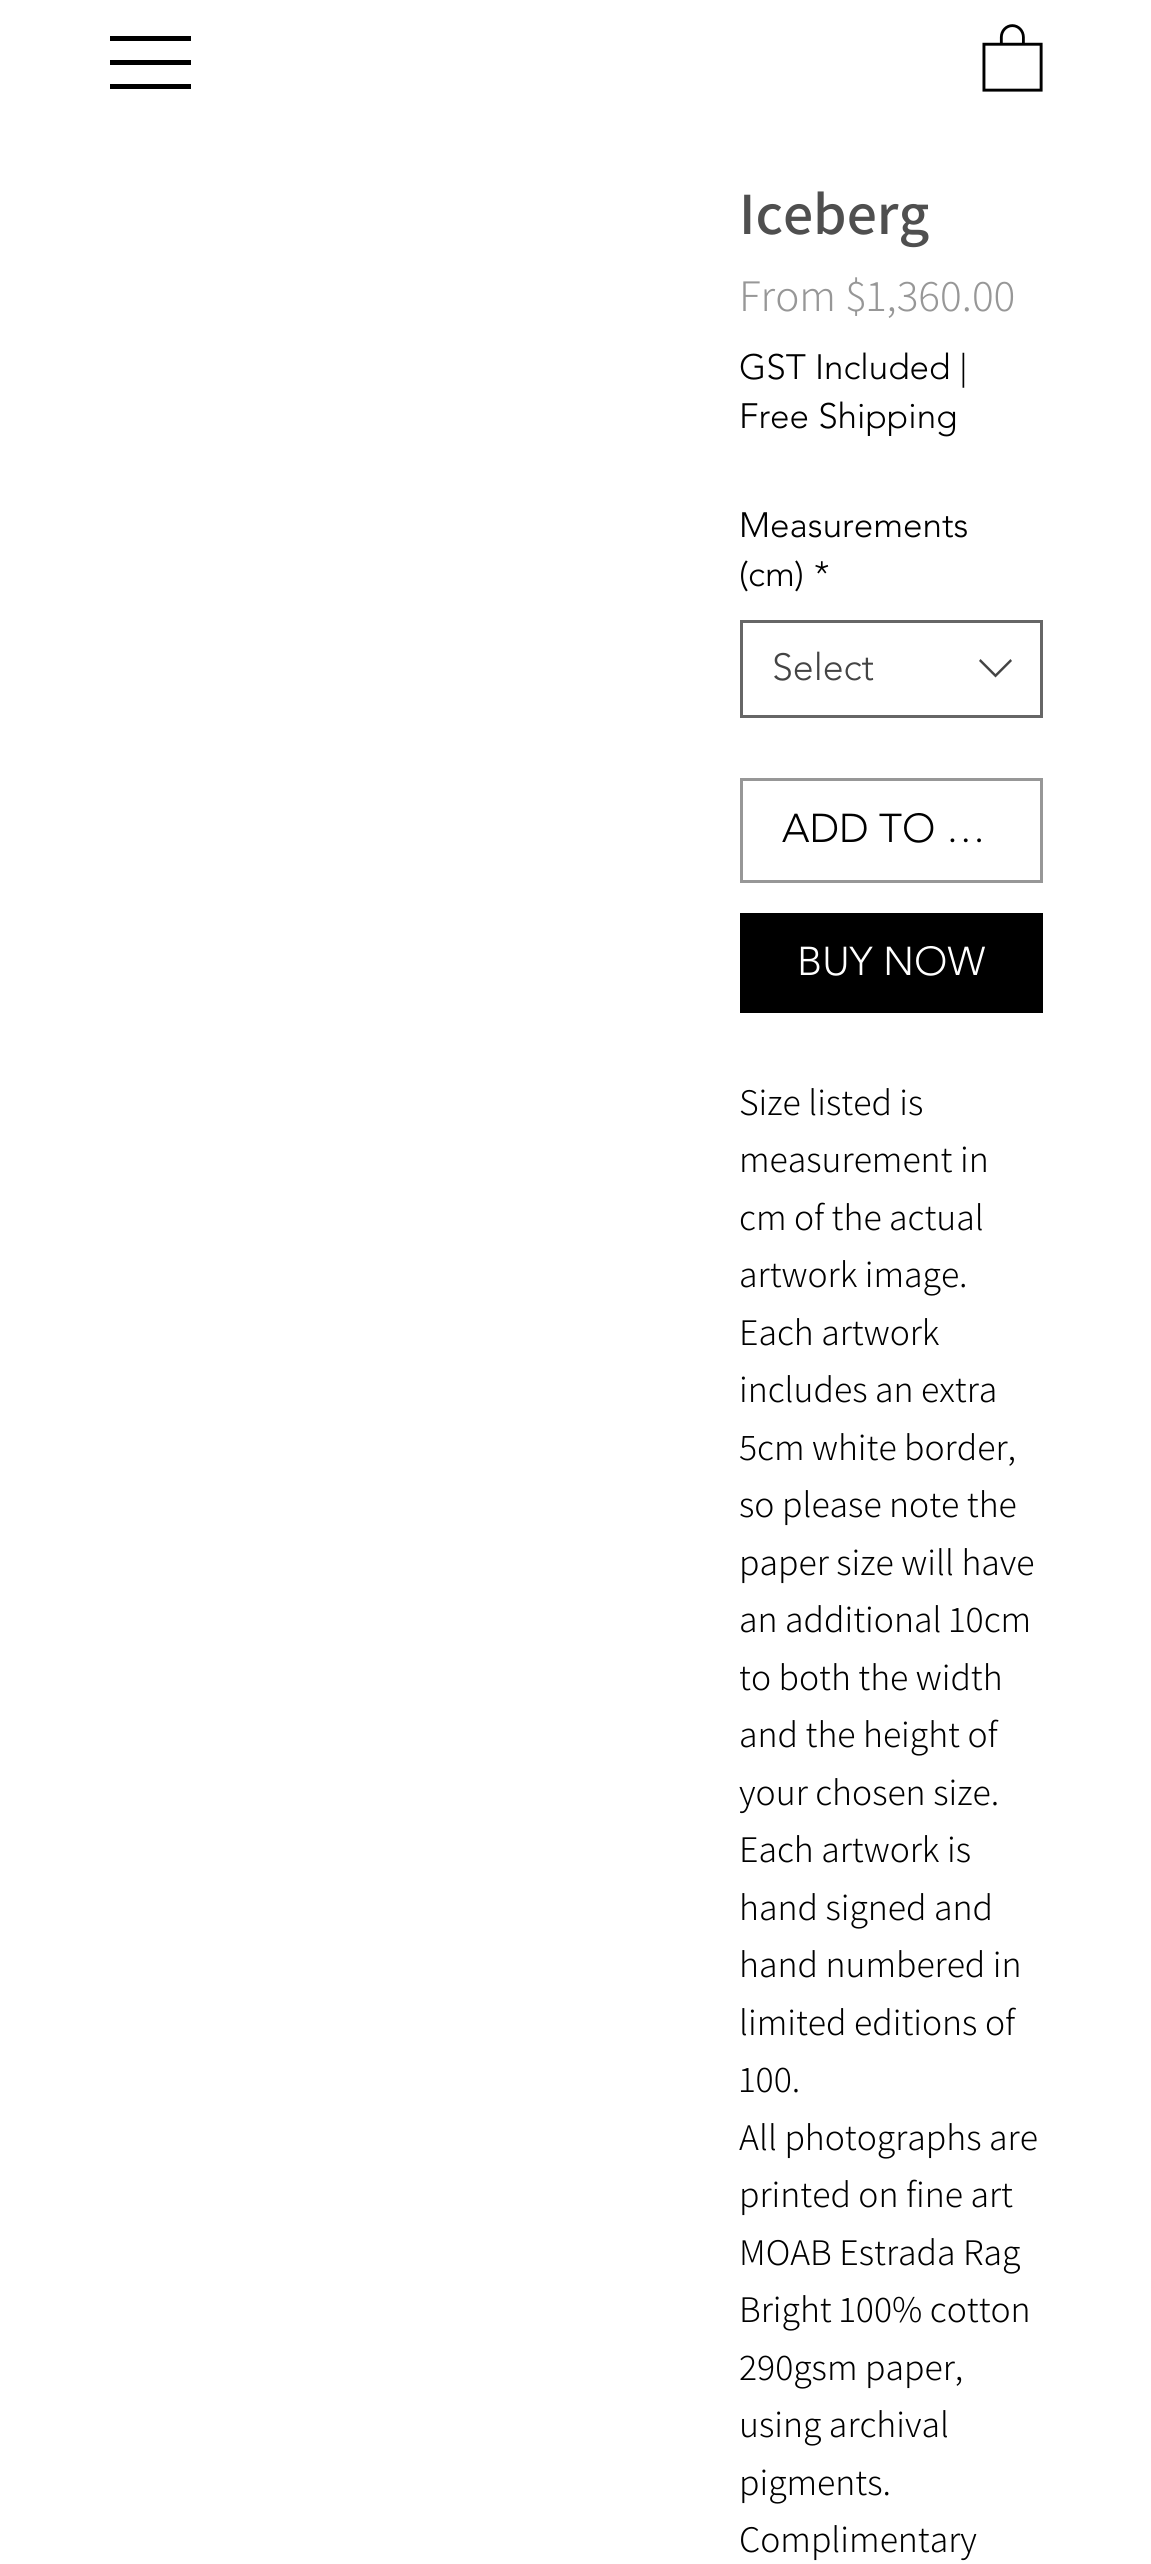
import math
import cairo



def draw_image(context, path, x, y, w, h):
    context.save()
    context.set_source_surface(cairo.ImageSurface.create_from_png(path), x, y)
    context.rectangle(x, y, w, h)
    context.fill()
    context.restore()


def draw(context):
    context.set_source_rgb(1, 1, 1)
    context.paint()
    context.set_source_rgb(0, 0, 0)
    context.rectangle(110, 36, 81, 5)
    context.fill()
    context.rectangle(110, 60, 81, 5)
    context.fill()
    context.rectangle(110, 84, 81, 5)
    context.fill()
    draw_image(context, "images/1.png", 982, 24, 61, 68)
    context.rectangle(741.5, 621.5, 300, 95)
    context.set_source_rgb(102 / 255, 102 / 255, 102 / 255)
    context.set_line_width(3)
    context.stroke()
    context.set_source_rgb(68 / 255, 68 / 255, 68 / 255)
    context.set_fill_rule(cairo.FillRule.EVEN_ODD)
    context.new_path()
    context.move_to(1010.5, 659)
    context.line_to(1012, 661)
    context.line_to(995.5, 677.5)
    context.line_to(979, 661)
    context.line_to(980.5, 659)
    context.line_to(995.5, 674)
    context.close_path()
    context.fill()
    context.rectangle(741.5, 779.5, 300, 102)
    context.set_source_rgb(151 / 255, 151 / 255, 151 / 255)
    context.stroke()
    context.set_source_rgb(0, 0, 0)
    context.rectangle(740, 913, 303, 100)
    context.fill()
    context.select_font_face("Assistant SemiBold")
    context.set_font_size(60)
    context.set_source_rgb(79 / 255, 79 / 255, 79 / 255)
    context.move_to(739, 234)
    context.show_text("Iceberg")
    context.select_font_face("Assistant Light")
    context.set_font_size(45)
    context.set_source_rgb(151 / 255, 151 / 255, 151 / 255)
    context.move_to(739, 311)
    context.show_text("From $1,360.00")
    context.select_font_face("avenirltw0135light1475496 Light")
    context.set_font_size(35)
    context.set_source_rgb(0, 0, 0)
    context.move_to(739, 379)
    context.show_text("GST Included |")
    context.move_to(739, 428)
    context.show_text("Free Shipping")
    context.move_to(739, 537)
    context.show_text("Measurements")
    context.move_to(739, 586)
    context.show_text("(cm)")
    context.move_to(814, 586)
    context.show_text("*")
    context.set_font_size(37.5)
    context.set_source_rgb(68 / 255, 68 / 255, 68 / 255)
    context.move_to(772, 680)
    context.show_text("Select")
    context.set_font_size(40)
    context.set_source_rgb(0, 0, 0)
    context.move_to(782, 842)
    context.show_text("ADD TO …")
    context.set_source_rgb(1, 1, 1)
    context.move_to(797, 975)
    context.show_text("BUY NOW")
    context.select_font_face("Assistant Light")
    context.set_font_size(37.5)
    context.set_source_rgb(0, 0, 0)
    context.move_to(739, 1115)
    context.show_text("Size listed is")
    context.move_to(739, 1172)
    context.show_text("measurement in")
    context.move_to(739, 1230)
    context.show_text("cm of the actual")
    context.move_to(739, 1287)
    context.show_text("artwork image.")
    context.move_to(739, 1345)
    context.show_text("Each artwork")
    context.move_to(739, 1402)
    context.show_text("includes an extra")
    context.move_to(739, 1460)
    context.show_text("5cm white border,")
    context.move_to(739, 1517)
    context.show_text("so please note the")
    context.move_to(739, 1575)
    context.show_text("paper size will have")
    context.move_to(739, 1632)
    context.show_text("an additional 10cm")
    context.move_to(739, 1690)
    context.show_text("to both the width")
    context.move_to(739, 1747)
    context.show_text("and the height of")
    context.move_to(739, 1805)
    context.show_text("your chosen size.")
    context.move_to(739, 1862)
    context.show_text("Each artwork is")
    context.move_to(739, 1920)
    context.show_text("hand signed and")
    context.move_to(739, 1977)
    context.show_text("hand numbered in")
    context.move_to(739, 2035)
    context.show_text("limited editions of")
    context.move_to(739, 2092)
    context.show_text("100.")
    context.move_to(739, 2150)
    context.show_text("All photographs are")
    context.move_to(739, 2207)
    context.show_text("printed on fine art")
    context.move_to(739, 2265)
    context.show_text("MOAB Estrada Rag")
    context.move_to(739, 2322)
    context.show_text("Bright 100% cotton")
    context.move_to(739, 2380)
    context.show_text("290gsm paper,")
    context.move_to(739, 2437)
    context.show_text("using archival")
    context.move_to(739, 2495)
    context.show_text("pigments.")
    context.move_to(739, 2552)
    context.show_text("Complimentary")


surface = cairo.ImageSurface(cairo.Format.RGB24, 1151, 2564)
context = cairo.Context(surface)
options = cairo.FontOptions()
options.set_hint_metrics(cairo.HintMetrics.OFF)
options.set_hint_style(cairo.HintStyle.NONE)
context.set_font_options(options)
context.set_miter_limit(4)
draw(context)
surface.write_to_png("out.png")
